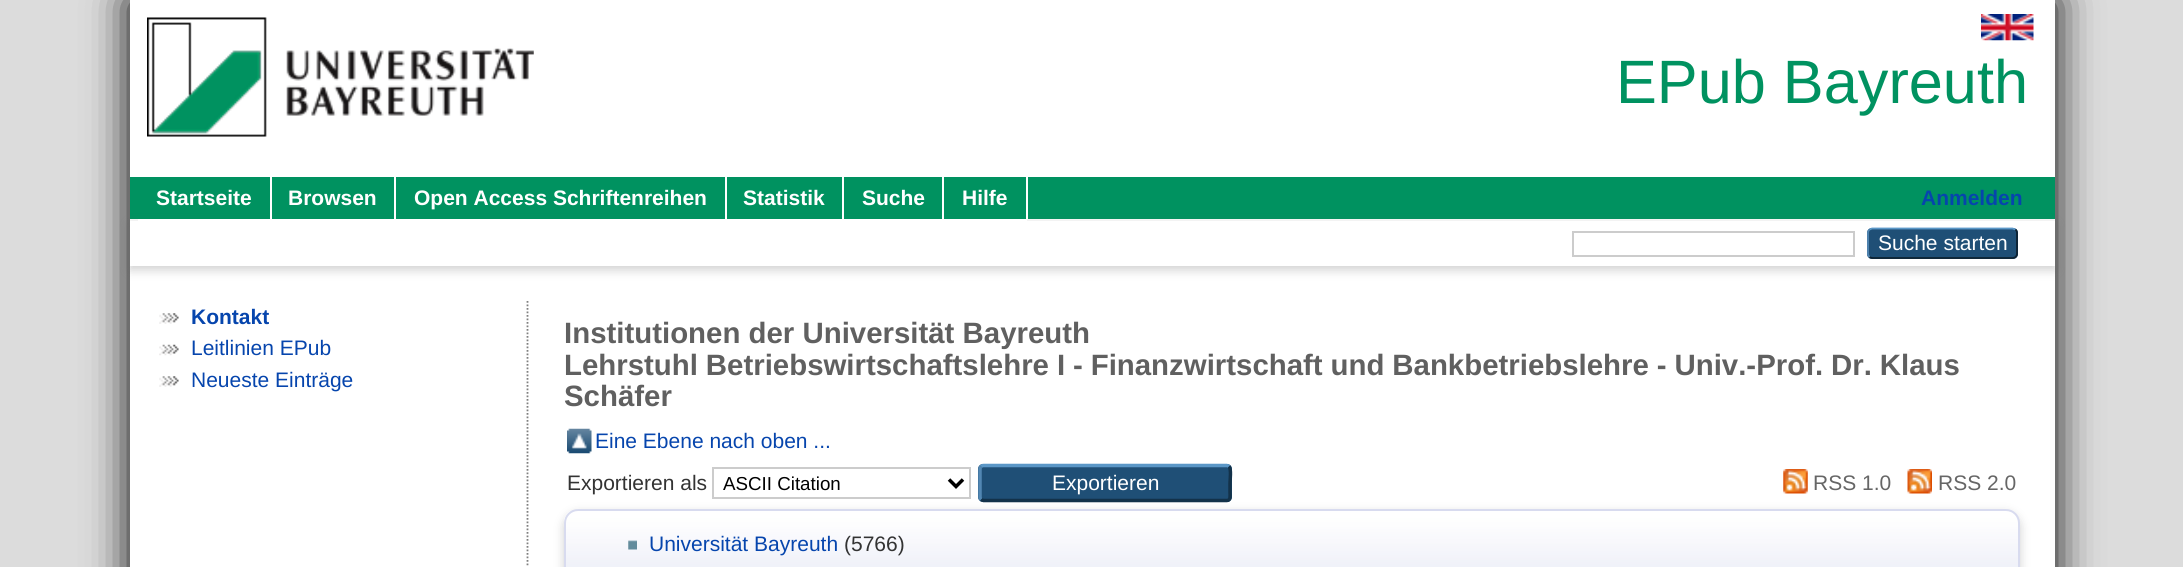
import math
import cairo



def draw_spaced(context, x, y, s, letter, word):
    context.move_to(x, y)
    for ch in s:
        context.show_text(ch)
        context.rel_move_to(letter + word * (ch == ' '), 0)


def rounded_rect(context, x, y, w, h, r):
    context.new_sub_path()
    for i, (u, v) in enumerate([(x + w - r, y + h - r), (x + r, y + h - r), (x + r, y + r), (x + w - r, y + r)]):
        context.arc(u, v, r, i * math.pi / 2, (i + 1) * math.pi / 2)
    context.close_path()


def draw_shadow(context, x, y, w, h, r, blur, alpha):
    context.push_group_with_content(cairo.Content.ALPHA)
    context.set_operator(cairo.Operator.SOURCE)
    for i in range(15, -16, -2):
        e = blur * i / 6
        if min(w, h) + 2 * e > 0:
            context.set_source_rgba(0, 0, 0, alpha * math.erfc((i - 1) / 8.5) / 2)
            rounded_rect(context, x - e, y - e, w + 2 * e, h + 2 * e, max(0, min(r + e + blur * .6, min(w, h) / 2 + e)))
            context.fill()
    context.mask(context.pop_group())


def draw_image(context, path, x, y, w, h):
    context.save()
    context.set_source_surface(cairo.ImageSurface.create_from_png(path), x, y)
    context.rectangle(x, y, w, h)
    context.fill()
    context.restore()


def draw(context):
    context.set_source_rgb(220 / 255, 220 / 255, 220 / 255)
    context.paint()
    context.set_source_rgb(0, 0, 0)
    draw_shadow(context, 130, 0, 1925, 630, 0, 21, 1)
    context.set_source_rgb(1, 1, 1)
    context.rectangle(130, 0, 1925, 567)
    context.fill()
    draw_image(context, "images/1.png", 147, 17, 387, 120)
    draw_image(context, "images/2.png", 1981, 14, 53, 27)
    context.set_source_rgb(0, 146 / 255, 96 / 255)
    context.rectangle(130, 177, 1925, 42)
    context.fill()
    context.set_source_rgb(100 / 255, 100 / 255, 100 / 255)
    draw_shadow(context, 130, 224, 1925, 46, 0, 5, 0.3)
    context.set_source_rgb(0, 146 / 255, 96 / 255)
    context.rectangle(138, 217, 888, 2)
    context.fill()
    context.set_source_rgb(1, 1, 1)
    context.rectangle(138, 219, 889, 2)
    context.fill()
    context.rectangle(270, 177, 2, 42)
    context.fill()
    context.rectangle(394, 177, 2, 42)
    context.fill()
    context.rectangle(725, 177, 2, 42)
    context.fill()
    context.rectangle(842, 177, 2, 42)
    context.fill()
    context.rectangle(942, 177, 2, 42)
    context.fill()
    context.rectangle(1026, 177, 2, 42)
    context.fill()
    context.rectangle(130, 221, 1925, 45)
    context.fill()
    context.rectangle(1573, 232, 281, 24)
    context.set_source_rgb(204 / 255, 204 / 255, 204 / 255)
    context.stroke()
    context.set_source_rgb(31 / 255, 79 / 255, 118 / 255)
    rounded_rect(context, 1867, 228, 151, 31, 5)
    context.fill()
    context.new_path()
    context.move_to(1869.5, 229.5)
    context.line_to(1872, 228.5)
    context.line_to(1989, 228.5)
    context.line_to(2012.5, 228.5)
    context.line_to(2015.5, 229.5)
    context.set_source_rgb(91 / 255, 151 / 255, 199 / 255)
    context.set_line_width(1.8)
    context.stroke()
    context.new_path()
    context.move_to(2015.5, 229.5)
    context.curve_to(2016.5, 230.5, 2017, 231.5, 2017, 233)
    context.line_to(2017, 254)
    context.curve_to(2017, 255, 2016.5, 256, 2015.5, 257)
    context.curve_to(2015, 257.5, 2013.5, 258, 2012.5, 258)
    context.line_to(1872.5, 258)
    context.curve_to(1871.5, 258, 1870, 257.5, 1869.5, 257)
    context.set_source_rgb(13 / 255, 33 / 255, 49 / 255)
    context.stroke()
    context.new_path()
    context.move_to(1869.5, 257)
    context.curve_to(1868.5, 256, 1868, 255, 1868, 254)
    context.line_to(1868, 233)
    context.curve_to(1868, 231.5, 1868.5, 230.5, 1869.5, 229.5)
    context.set_source_rgb(82 / 255, 135 / 255, 179 / 255)
    context.stroke()
    draw_image(context, "images/3.png", 159, 313, 20, 11)
    draw_image(context, "images/4.png", 159, 344, 20, 12)
    draw_image(context, "images/3.png", 159, 376, 20, 11)
    context.new_path()
    context.move_to(527.5, 301)
    context.line_to(527.5, 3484)
    context.set_source_rgb(128 / 255, 128 / 255, 128 / 255)
    context.set_dash([1.75, 1.75])
    context.stroke()
    draw_image(context, "images/5.png", 567, 428, 25, 26)
    context.set_source_rgb(100 / 255, 100 / 255, 100 / 255)
    draw_shadow(context, 564, 513, 1456, 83, 14, 5, 0.3)
    context.rectangle(713, 468, 257, 30)
    context.set_source_rgb(204 / 255, 204 / 255, 204 / 255)
    context.set_line_width(2)
    context.set_dash([])
    context.stroke()
    context.new_path()
    context.move_to(949, 479.5)
    context.line_to(956, 486.5)
    context.line_to(963, 479.5)
    context.set_source_rgb(0, 0, 0)
    context.set_line_width(3.5)
    context.stroke()
    context.set_source_rgb(31 / 255, 79 / 255, 118 / 255)
    rounded_rect(context, 978, 464, 254, 38, 5)
    context.fill()
    context.new_path()
    context.move_to(981, 466.5)
    context.curve_to(981.5, 466, 982.5, 465.5, 983.5, 465.5)
    context.line_to(1227, 465.5)
    context.curve_to(1227.5, 465.5, 1228.5, 466, 1229, 466.5)
    context.set_source_rgb(91 / 255, 151 / 255, 199 / 255)
    context.stroke()
    context.new_path()
    context.move_to(1229, 466.5)
    context.curve_to(1231.5, 469, 1230, 480, 1230, 483)
    context.line_to(1230, 492.5)
    context.curve_to(1230, 495, 1231, 500.5, 1227, 500.5)
    context.line_to(983.5, 500.5)
    context.line_to(981, 499.5)
    context.set_source_rgb(19 / 255, 50 / 255, 74 / 255)
    context.stroke()
    context.new_path()
    context.move_to(981, 499.5)
    context.curve_to(980.5, 499, 980, 498, 980, 497)
    context.line_to(980, 469)
    context.curve_to(980, 468, 980.5, 467, 981, 466.5)
    context.set_source_rgb(82 / 255, 135 / 255, 179 / 255)
    context.stroke()
    draw_image(context, "images/6.png", 1783, 469, 25, 25)
    draw_image(context, "images/7.png", 1907, 469, 25, 25)
    draw_image(context, "images/8.png", 564, 511, 1456, 56)
    rounded_rect(context, 565, 510, 1454, 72, 13)
    context.set_source_rgb(216 / 255, 219 / 255, 239 / 255)
    context.set_line_width(2)
    context.stroke()
    draw_image(context, "images/9.png", 628, 540, 9, 10)
    context.select_font_face("Liberation Sans")
    context.set_font_size(61.25)
    context.set_source_rgb(0, 146 / 255, 96 / 255)
    context.move_to(1616, 103)
    context.show_text("EPub Bayreuth")
    context.select_font_face("Liberation Sans", cairo.FontSlant.NORMAL, cairo.FontWeight.BOLD)
    context.set_font_size(21)
    context.set_source_rgb(1, 1, 1)
    context.move_to(156, 205)
    context.show_text("Startseite")
    context.move_to(288, 205)
    context.show_text("Browsen")
    context.move_to(414, 205)
    context.show_text("Open Access Schriftenreihen")
    context.move_to(743, 205)
    context.show_text("Statistik")
    context.move_to(862, 205)
    context.show_text("Suche")
    context.move_to(962, 205)
    context.show_text("Hilfe")
    context.set_source_rgb(6 / 255, 69 / 255, 173 / 255)
    context.move_to(1921, 205)
    context.show_text("Anmelden")
    context.select_font_face("Liberation Sans")
    context.set_source_rgb(1, 1, 1)
    context.move_to(1878, 250)
    context.show_text("Suche starten")
    context.select_font_face("Liberation Sans", cairo.FontSlant.NORMAL, cairo.FontWeight.BOLD)
    context.set_source_rgb(6 / 255, 69 / 255, 173 / 255)
    context.move_to(191, 324)
    context.show_text("Kontakt")
    context.select_font_face("Liberation Sans")
    context.move_to(191, 355)
    context.show_text("Leitlinien EPub")
    context.move_to(191, 387)
    context.show_text("Neueste Einträge")
    context.select_font_face("Liberation Sans", cairo.FontSlant.NORMAL, cairo.FontWeight.BOLD)
    context.set_font_size(29.4)
    context.set_source_rgb(96 / 255, 96 / 255, 96 / 255)
    context.move_to(564, 343)
    context.show_text("Institutionen der Universität Bayreuth")
    draw_spaced(context, 564, 375, "Lehrstuhl Betriebswirtschaftslehre I - Finanzwirtschaft und Bankbetriebslehre - Univ.-Prof. Dr. Klaus", 0, -0.25)
    context.move_to(564, 406)
    context.show_text("Schäfer")
    context.select_font_face("Liberation Sans")
    context.set_font_size(21)
    context.set_source_rgb(6 / 255, 69 / 255, 173 / 255)
    context.move_to(595, 448)
    context.show_text("Eine Ebene nach oben ...")
    context.set_source_rgb(51 / 255, 51 / 255, 51 / 255)
    context.move_to(567, 490)
    context.show_text("Exportieren als")
    context.set_font_size(18.75)
    context.set_source_rgb(0, 0, 0)
    context.move_to(723, 490)
    context.show_text("ASCII Citation")
    context.set_font_size(21)
    context.set_source_rgb(1, 1, 1)
    context.move_to(1052, 490)
    context.show_text("Exportieren")
    context.set_source_rgb(102 / 255, 102 / 255, 102 / 255)
    context.move_to(1813, 490)
    context.show_text("RSS 1.0")
    context.move_to(1938, 490)
    context.show_text("RSS 2.0")
    context.set_source_rgb(6 / 255, 69 / 255, 173 / 255)
    context.move_to(649, 551)
    context.show_text("Universität Bayreuth")
    context.set_source_rgb(51 / 255, 51 / 255, 51 / 255)
    context.move_to(844, 551)
    context.show_text("(5766)")


surface = cairo.ImageSurface(cairo.Format.RGB24, 2183, 567)
context = cairo.Context(surface)
options = cairo.FontOptions()
options.set_hint_metrics(cairo.HintMetrics.OFF)
options.set_hint_style(cairo.HintStyle.NONE)
context.set_font_options(options)
context.set_miter_limit(4)
draw(context)
surface.write_to_png("out.png")
